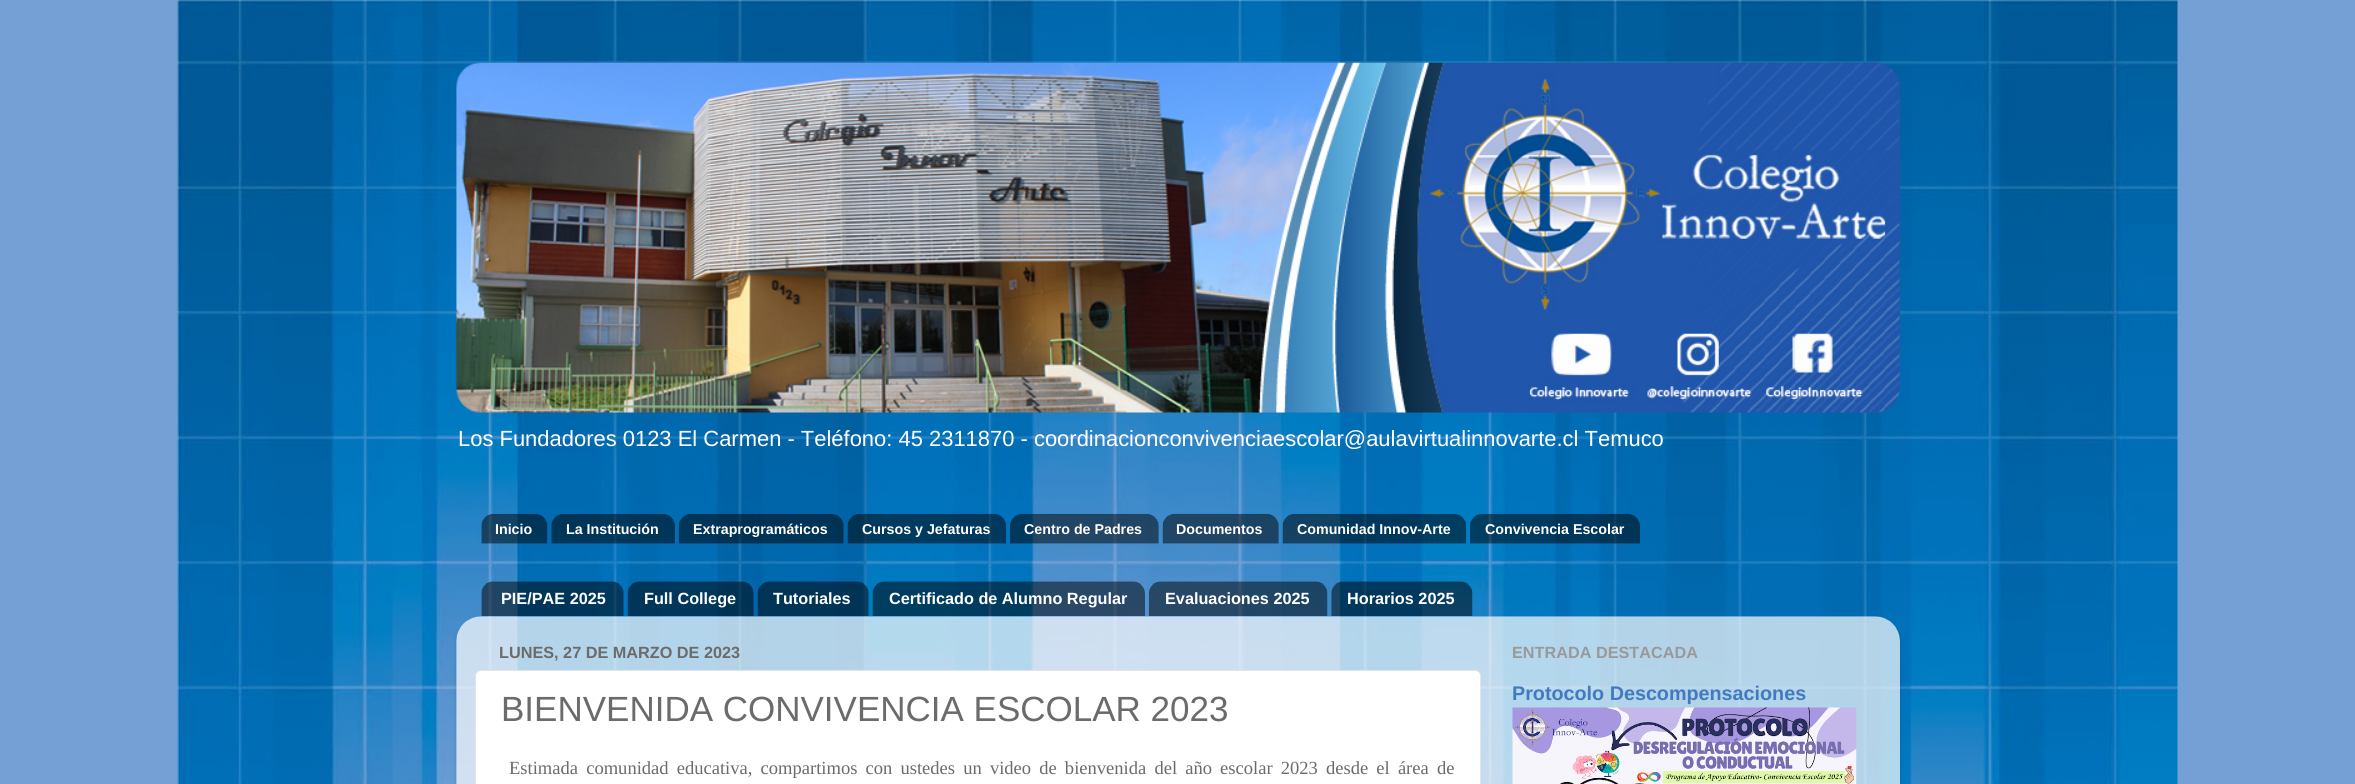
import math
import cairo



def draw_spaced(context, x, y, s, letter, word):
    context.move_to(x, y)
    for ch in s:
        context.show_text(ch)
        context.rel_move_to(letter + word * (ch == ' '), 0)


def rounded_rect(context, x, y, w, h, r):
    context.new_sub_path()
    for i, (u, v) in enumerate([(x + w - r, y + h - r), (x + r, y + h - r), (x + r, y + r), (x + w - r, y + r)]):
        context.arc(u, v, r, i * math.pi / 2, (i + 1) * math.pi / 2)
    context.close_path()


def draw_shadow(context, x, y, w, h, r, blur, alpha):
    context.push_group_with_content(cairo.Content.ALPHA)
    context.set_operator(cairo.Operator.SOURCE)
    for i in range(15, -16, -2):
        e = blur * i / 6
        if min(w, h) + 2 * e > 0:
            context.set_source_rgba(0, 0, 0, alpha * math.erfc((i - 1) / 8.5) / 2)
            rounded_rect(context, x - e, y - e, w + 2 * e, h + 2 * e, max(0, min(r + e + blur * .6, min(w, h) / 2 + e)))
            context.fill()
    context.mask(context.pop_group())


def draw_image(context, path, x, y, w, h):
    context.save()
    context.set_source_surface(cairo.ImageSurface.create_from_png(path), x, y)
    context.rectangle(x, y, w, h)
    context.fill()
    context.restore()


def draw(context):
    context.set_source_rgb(117 / 255, 160 / 255, 213 / 255)
    context.paint()
    draw_image(context, "images/1.png", 177, 0, 2001, 784)
    draw_image(context, "images/2.png", 456, 62, 1444, 351)
    draw_image(context, "images/3.png", 481, 513, 67, 31)
    draw_image(context, "images/4.png", 551, 513, 124, 31)
    draw_image(context, "images/5.png", 678, 513, 166, 31)
    draw_image(context, "images/6.png", 847, 513, 160, 31)
    draw_image(context, "images/7.png", 1010, 513, 149, 31)
    draw_image(context, "images/8.png", 1162, 513, 117, 31)
    draw_image(context, "images/9.png", 1282, 513, 185, 31)
    draw_image(context, "images/10.png", 1470, 513, 170, 31)
    draw_image(context, "images/11.png", 481, 581, 143, 35)
    draw_image(context, "images/12.png", 627, 581, 127, 35)
    draw_image(context, "images/13.png", 757, 581, 112, 35)
    draw_image(context, "images/14.png", 872, 581, 273, 35)
    draw_image(context, "images/15.png", 1148, 581, 180, 35)
    draw_image(context, "images/16.png", 1331, 581, 142, 35)
    context.save()
    context.set_fill_rule(cairo.FillRule.EVEN_ODD)
    context.new_path()
    context.move_to(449, 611)
    context.line_to(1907, 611)
    context.line_to(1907, 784)
    context.line_to(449, 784)
    context.close_path()
    context.move_to(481, 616)
    context.line_to(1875, 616)
    context.curve_to(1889, 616, 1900, 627, 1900, 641)
    context.line_to(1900, 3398)
    context.line_to(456, 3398)
    context.line_to(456, 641)
    context.curve_to(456, 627, 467, 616, 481, 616)
    context.close_path()
    context.clip()
    context.set_source_rgb(0, 0, 0)
    draw_shadow(context, 456, 618, 1444, 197, 25, 2, 0.15)
    context.restore()
    draw_image(context, "images/17.png", 456, 616, 1444, 168)
    context.set_source_rgb(1, 1, 1)
    rounded_rect(context, 475.5, 670.5, 1005, 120, 5.5)
    context.fill_preserve()
    context.set_source_rgb(228 / 255, 228 / 255, 228 / 255)
    context.set_line_width(1)
    context.stroke()
    draw_image(context, "images/18.png", 1512, 707, 345, 77)
    context.select_font_face("Liberation Sans")
    context.set_font_size(21.95)
    context.set_source_rgb(1, 1, 1)
    context.move_to(458, 446)
    context.show_text("Los Fundadores 0123 El Carmen - Teléfono: 45 2311870 - coordinacionconvivenciaescolar@aulavirtualinnovarte.cl Temuco")
    context.select_font_face("Liberation Sans", cairo.FontSlant.NORMAL, cairo.FontWeight.BOLD)
    context.set_font_size(14.25)
    context.move_to(495, 534)
    context.show_text("Inicio")
    context.move_to(566, 534)
    context.show_text("La Institución")
    context.move_to(693, 534)
    context.show_text("Extraprogramáticos")
    context.move_to(862, 534)
    context.show_text("Cursos y Jefaturas")
    context.move_to(1024, 534)
    context.show_text("Centro de Padres")
    context.move_to(1176, 534)
    context.show_text("Documentos")
    context.move_to(1297, 534)
    context.show_text("Comunidad Innov-Arte")
    context.move_to(1485, 534)
    context.show_text("Convivencia Escolar")
    context.set_font_size(16.25)
    context.move_to(501, 604)
    context.show_text("PIE/PAE 2025")
    context.move_to(644, 604)
    context.show_text("Full College")
    context.move_to(773, 604)
    context.show_text("Tutoriales")
    context.move_to(889, 604)
    context.show_text("Certificado de Alumno Regular")
    context.move_to(1165, 604)
    context.show_text("Evaluaciones 2025")
    context.move_to(1347, 604)
    context.show_text("Horarios 2025")
    context.set_source_rgb(107 / 255, 107 / 255, 107 / 255)
    context.move_to(499, 658)
    context.show_text("LUNES, 27 DE MARZO DE 2023")
    context.select_font_face("Liberation Sans")
    context.set_font_size(35)
    context.move_to(501, 721)
    context.show_text("BIENVENIDA CONVIVENCIA ESCOLAR 2023")
    context.select_font_face("Liberation Serif")
    context.set_font_size(18.55)
    draw_spaced(context, 509, 774, "Estimada comunidad educativa, compartimos con ustedes un video de bienvenida del año escolar 2023 desde el área de", 0, 3.5)
    context.select_font_face("Liberation Sans", cairo.FontSlant.NORMAL, cairo.FontWeight.BOLD)
    context.set_font_size(16.25)
    context.set_source_rgb(153 / 255, 153 / 255, 153 / 255)
    context.move_to(1512, 658)
    context.show_text("ENTRADA DESTACADA")
    context.set_font_size(19.75)
    context.set_source_rgb(66 / 255, 122 / 255, 192 / 255)
    context.move_to(1512, 700)
    context.show_text("Protocolo Descompensaciones")


surface = cairo.ImageSurface(cairo.Format.RGB24, 2355, 784)
context = cairo.Context(surface)
options = cairo.FontOptions()
options.set_hint_metrics(cairo.HintMetrics.OFF)
options.set_hint_style(cairo.HintStyle.NONE)
context.set_font_options(options)
context.set_miter_limit(4)
draw(context)
surface.write_to_png("out.png")
